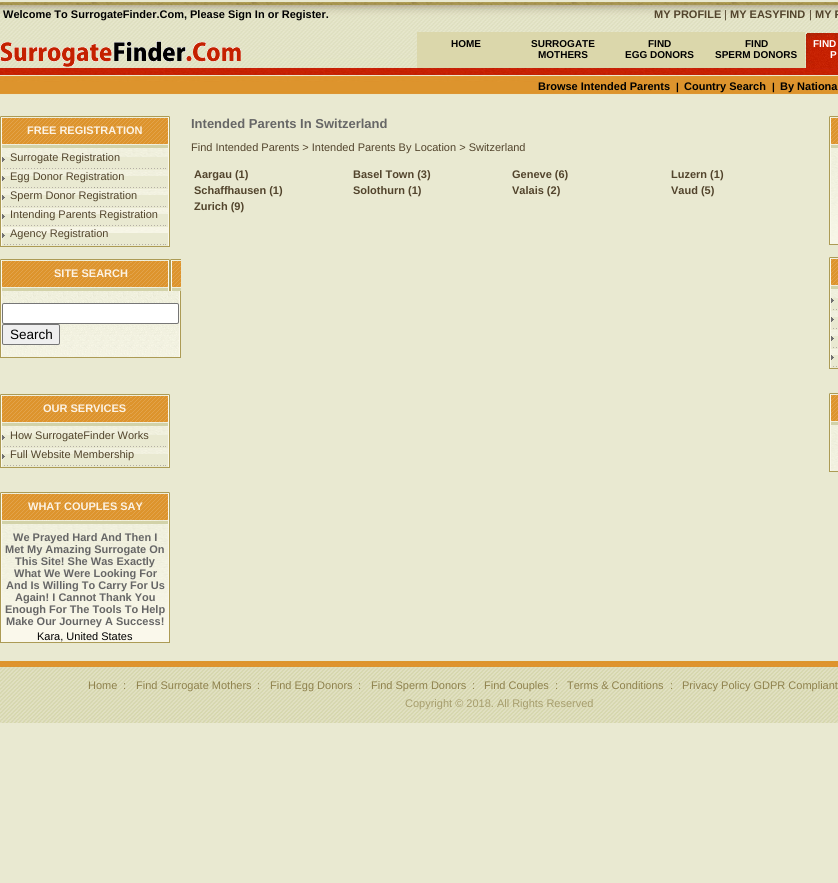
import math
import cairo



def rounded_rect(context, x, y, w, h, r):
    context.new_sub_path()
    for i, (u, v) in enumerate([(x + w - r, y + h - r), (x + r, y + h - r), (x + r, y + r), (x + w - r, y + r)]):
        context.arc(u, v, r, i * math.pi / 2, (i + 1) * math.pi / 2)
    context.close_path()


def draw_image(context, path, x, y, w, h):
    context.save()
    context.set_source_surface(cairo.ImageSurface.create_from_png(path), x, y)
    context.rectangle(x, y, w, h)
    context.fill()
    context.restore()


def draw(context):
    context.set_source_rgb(233 / 255, 233 / 255, 209 / 255)
    context.paint()
    draw_image(context, "images/1.png", 0, 2, 838, 93)
    draw_image(context, "images/2.png", 0, 41, 241, 26)
    context.set_source_rgb(219 / 255, 215 / 255, 171 / 255)
    context.rectangle(417, 32, 388, 36)
    context.fill()
    draw_image(context, "images/3.png", 806, 32, 32, 36)
    draw_image(context, "images/4.png", 0, 116, 170, 32)
    draw_image(context, "images/5.png", 0, 148, 2, 98)
    draw_image(context, "images/6.png", 2, 148, 166, 85)
    draw_image(context, "images/7.png", 2, 157, 166, 13)
    draw_image(context, "images/7.png", 2, 176, 166, 13)
    draw_image(context, "images/7.png", 2, 195, 166, 13)
    draw_image(context, "images/7.png", 2, 214, 166, 13)
    draw_image(context, "images/7.png", 2, 233, 166, 13)
    draw_image(context, "images/8.png", 168, 148, 2, 98)
    context.set_source_rgb(172 / 255, 155 / 255, 85 / 255)
    context.rectangle(0, 246, 170, 1)
    context.fill()
    draw_image(context, "images/9.png", 0, 259, 181, 32)
    draw_image(context, "images/10.png", 0, 291, 2, 66)
    draw_image(context, "images/11.png", 2, 291, 177, 66)
    context.set_source_rgb(1, 1, 1)
    rounded_rect(context, 2.5, 303.5, 176, 20, 1.5)
    context.fill_preserve()
    context.set_source_rgb(118 / 255, 118 / 255, 118 / 255)
    context.set_line_width(1)
    context.stroke()
    context.set_source_rgb(239 / 255, 239 / 255, 239 / 255)
    rounded_rect(context, 2.5, 324.5, 57, 20, 1.5)
    context.fill_preserve()
    context.set_source_rgb(118 / 255, 118 / 255, 118 / 255)
    context.stroke()
    draw_image(context, "images/12.png", 179, 291, 2, 66)
    context.set_source_rgb(172 / 255, 155 / 255, 85 / 255)
    context.rectangle(0, 357, 181, 1)
    context.fill()
    draw_image(context, "images/4.png", 0, 394, 170, 32)
    draw_image(context, "images/13.png", 0, 426, 2, 41)
    draw_image(context, "images/14.png", 2, 426, 166, 28)
    draw_image(context, "images/7.png", 2, 435, 166, 13)
    draw_image(context, "images/7.png", 2, 454, 166, 13)
    draw_image(context, "images/15.png", 168, 426, 2, 41)
    context.rectangle(0, 467, 170, 1)
    context.fill()
    draw_image(context, "images/4.png", 0, 492, 170, 32)
    draw_image(context, "images/16.png", 0, 524, 2, 118)
    context.set_source_rgb(250 / 255, 248 / 255, 235 / 255)
    context.rectangle(2, 620, 166, 22)
    context.fill()
    draw_image(context, "images/17.png", 2, 524, 166, 96)
    draw_image(context, "images/18.png", 168, 524, 2, 118)
    context.set_source_rgb(172 / 255, 155 / 255, 85 / 255)
    context.rectangle(0, 642, 170, 1)
    context.fill()
    draw_image(context, "images/19.png", 829, 116, 9, 32)
    draw_image(context, "images/20.png", 829, 148, 2, 96)
    draw_image(context, "images/21.png", 831, 148, 7, 96)
    context.rectangle(829, 244, 9, 1)
    context.fill()
    draw_image(context, "images/19.png", 829, 257, 9, 32)
    draw_image(context, "images/22.png", 829, 289, 2, 79)
    draw_image(context, "images/23.png", 831, 289, 7, 66)
    draw_image(context, "images/24.png", 831, 298, 7, 13)
    draw_image(context, "images/24.png", 831, 317, 7, 13)
    draw_image(context, "images/24.png", 831, 336, 7, 13)
    draw_image(context, "images/24.png", 831, 355, 7, 13)
    context.rectangle(829, 368, 9, 1)
    context.fill()
    draw_image(context, "images/19.png", 829, 393, 9, 32)
    draw_image(context, "images/25.png", 829, 425, 2, 46)
    draw_image(context, "images/26.png", 831, 425, 7, 46)
    context.rectangle(829, 471, 9, 1)
    context.fill()
    draw_image(context, "images/27.png", 0, 661, 838, 62)
    context.select_font_face("Liberation Sans", cairo.FontSlant.NORMAL, cairo.FontWeight.BOLD)
    context.set_font_size(11)
    context.set_source_rgb(0, 0, 0)
    context.move_to(3, 18)
    context.show_text("Welcome To SurrogateFinder.Com, Please Sign In or Register.")
    context.set_source_rgb(82 / 255, 68 / 255, 44 / 255)
    context.move_to(654, 18)
    context.show_text("MY PROFILE")
    context.select_font_face("Liberation Sans")
    context.move_to(724, 18)
    context.show_text("|")
    context.select_font_face("Liberation Sans", cairo.FontSlant.NORMAL, cairo.FontWeight.BOLD)
    context.move_to(730, 18)
    context.show_text("MY EASYFIND")
    context.select_font_face("Liberation Sans")
    context.move_to(809, 18)
    context.show_text("|")
    context.select_font_face("Liberation Sans", cairo.FontSlant.NORMAL, cairo.FontWeight.BOLD)
    context.move_to(815, 18)
    context.show_text("MY F")
    context.set_font_size(10)
    context.set_source_rgb(0, 0, 0)
    context.move_to(451, 47)
    context.show_text("HOME")
    context.move_to(531, 47)
    context.show_text("SURROGATE")
    context.move_to(538, 58)
    context.show_text("MOTHERS")
    context.move_to(648, 47)
    context.show_text("FIND")
    context.move_to(625, 58)
    context.show_text("EGG DONORS")
    context.move_to(745, 47)
    context.show_text("FIND")
    context.move_to(715, 58)
    context.show_text("SPERM DONORS")
    context.set_source_rgb(1, 1, 1)
    context.move_to(813, 47)
    context.show_text("FIND")
    context.move_to(830, 58)
    context.show_text("P")
    context.set_font_size(11)
    context.set_source_rgb(0, 0, 0)
    context.move_to(538, 90)
    context.show_text("Browse Intended Parents")
    context.set_font_size(10)
    context.move_to(676, 90)
    context.show_text("|")
    context.set_font_size(11)
    context.move_to(684, 90)
    context.show_text("Country Search")
    context.set_font_size(10)
    context.move_to(772, 90)
    context.show_text("|")
    context.set_font_size(11)
    context.move_to(780, 90)
    context.show_text("By Nationa")
    context.set_source_rgb(252 / 255, 243 / 255, 229 / 255)
    context.move_to(27, 134)
    context.show_text("FREE REGISTRATION")
    context.select_font_face("Liberation Sans")
    context.set_source_rgb(82 / 255, 68 / 255, 44 / 255)
    context.move_to(10, 161)
    context.show_text("Surrogate Registration")
    context.move_to(10, 180)
    context.show_text("Egg Donor Registration")
    context.move_to(10, 199)
    context.show_text("Sperm Donor Registration")
    context.move_to(10, 218)
    context.show_text("Intending Parents Registration")
    context.move_to(10, 237)
    context.show_text("Agency Registration")
    context.select_font_face("Liberation Sans", cairo.FontSlant.NORMAL, cairo.FontWeight.BOLD)
    context.set_source_rgb(252 / 255, 243 / 255, 229 / 255)
    context.move_to(54, 277)
    context.show_text("SITE SEARCH")
    context.select_font_face("Liberation Sans")
    context.set_font_size(13.5)
    context.set_source_rgb(0, 0, 0)
    context.move_to(10, 339)
    context.show_text("Search")
    context.select_font_face("Liberation Sans", cairo.FontSlant.NORMAL, cairo.FontWeight.BOLD)
    context.set_font_size(11)
    context.set_source_rgb(252 / 255, 243 / 255, 229 / 255)
    context.move_to(43, 412)
    context.show_text("OUR SERVICES")
    context.select_font_face("Liberation Sans")
    context.set_source_rgb(82 / 255, 68 / 255, 44 / 255)
    context.move_to(10, 439)
    context.show_text("How SurrogateFinder Works")
    context.move_to(10, 458)
    context.show_text("Full Website Membership")
    context.select_font_face("Liberation Sans", cairo.FontSlant.NORMAL, cairo.FontWeight.BOLD)
    context.set_source_rgb(252 / 255, 243 / 255, 229 / 255)
    context.move_to(28, 510)
    context.show_text("WHAT COUPLES SAY")
    context.set_source_rgb(102 / 255, 102 / 255, 102 / 255)
    context.move_to(13, 541)
    context.show_text("We Prayed Hard And Then I")
    context.move_to(5, 553)
    context.show_text("Met My Amazing Surrogate On")
    context.move_to(15, 565)
    context.show_text("This Site! She Was Exactly")
    context.move_to(14, 577)
    context.show_text("What We Were Looking For")
    context.move_to(6, 589)
    context.show_text("And Is Willing To Carry For Us")
    context.move_to(15, 601)
    context.show_text("Again! I Cannot Thank You")
    context.move_to(5, 613)
    context.show_text("Enough For The Tools To Help")
    context.move_to(6, 625)
    context.show_text("Make Our Journey A Success!")
    context.select_font_face("Liberation Sans")
    context.set_source_rgb(0, 0, 0)
    context.move_to(37, 640)
    context.show_text("Kara, United States")
    context.select_font_face("Liberation Sans", cairo.FontSlant.NORMAL, cairo.FontWeight.BOLD)
    context.set_font_size(13)
    context.set_source_rgb(102 / 255, 102 / 255, 102 / 255)
    context.move_to(191, 128)
    context.show_text("Intended Parents In Switzerland")
    context.select_font_face("Liberation Sans")
    context.set_font_size(11)
    context.set_source_rgb(82 / 255, 68 / 255, 44 / 255)
    context.move_to(191, 151)
    context.show_text("Find Intended Parents > Intended Parents By Location > Switzerland")
    context.select_font_face("Liberation Sans", cairo.FontSlant.NORMAL, cairo.FontWeight.BOLD)
    context.move_to(194, 178)
    context.show_text("Aargau (1)")
    context.move_to(353, 178)
    context.show_text("Basel Town (3)")
    context.move_to(512, 178)
    context.show_text("Geneve (6)")
    context.move_to(671, 178)
    context.show_text("Luzern (1)")
    context.move_to(194, 194)
    context.show_text("Schaffhausen (1)")
    context.move_to(353, 194)
    context.show_text("Solothurn (1)")
    context.move_to(512, 194)
    context.show_text("Valais (2)")
    context.move_to(671, 194)
    context.show_text("Vaud (5)")
    context.move_to(194, 210)
    context.show_text("Zurich (9)")
    context.select_font_face("Liberation Sans")
    context.set_source_rgb(142 / 255, 129 / 255, 76 / 255)
    context.move_to(88, 689)
    context.show_text("Home")
    context.move_to(123, 689)
    context.show_text(":")
    context.move_to(136, 689)
    context.show_text("Find Surrogate Mothers")
    context.move_to(257, 689)
    context.show_text(":")
    context.move_to(270, 689)
    context.show_text("Find Egg Donors")
    context.move_to(358, 689)
    context.show_text(":")
    context.move_to(371, 689)
    context.show_text("Find Sperm Donors")
    context.move_to(472, 689)
    context.show_text(":")
    context.move_to(484, 689)
    context.show_text("Find Couples")
    context.move_to(555, 689)
    context.show_text(":")
    context.move_to(567, 689)
    context.show_text("Terms & Conditions")
    context.move_to(670, 689)
    context.show_text(":")
    context.move_to(682, 689)
    context.show_text("Privacy Policy GDPR Compliant")
    context.set_source_rgb(166 / 255, 157 / 255, 109 / 255)
    context.move_to(405, 707)
    context.show_text("Copyright © 2018. All Rights Reserved")


surface = cairo.ImageSurface(cairo.Format.RGB24, 838, 883)
context = cairo.Context(surface)
options = cairo.FontOptions()
options.set_hint_metrics(cairo.HintMetrics.OFF)
options.set_hint_style(cairo.HintStyle.NONE)
context.set_font_options(options)
context.set_miter_limit(4)
draw(context)
surface.write_to_png("out.png")
